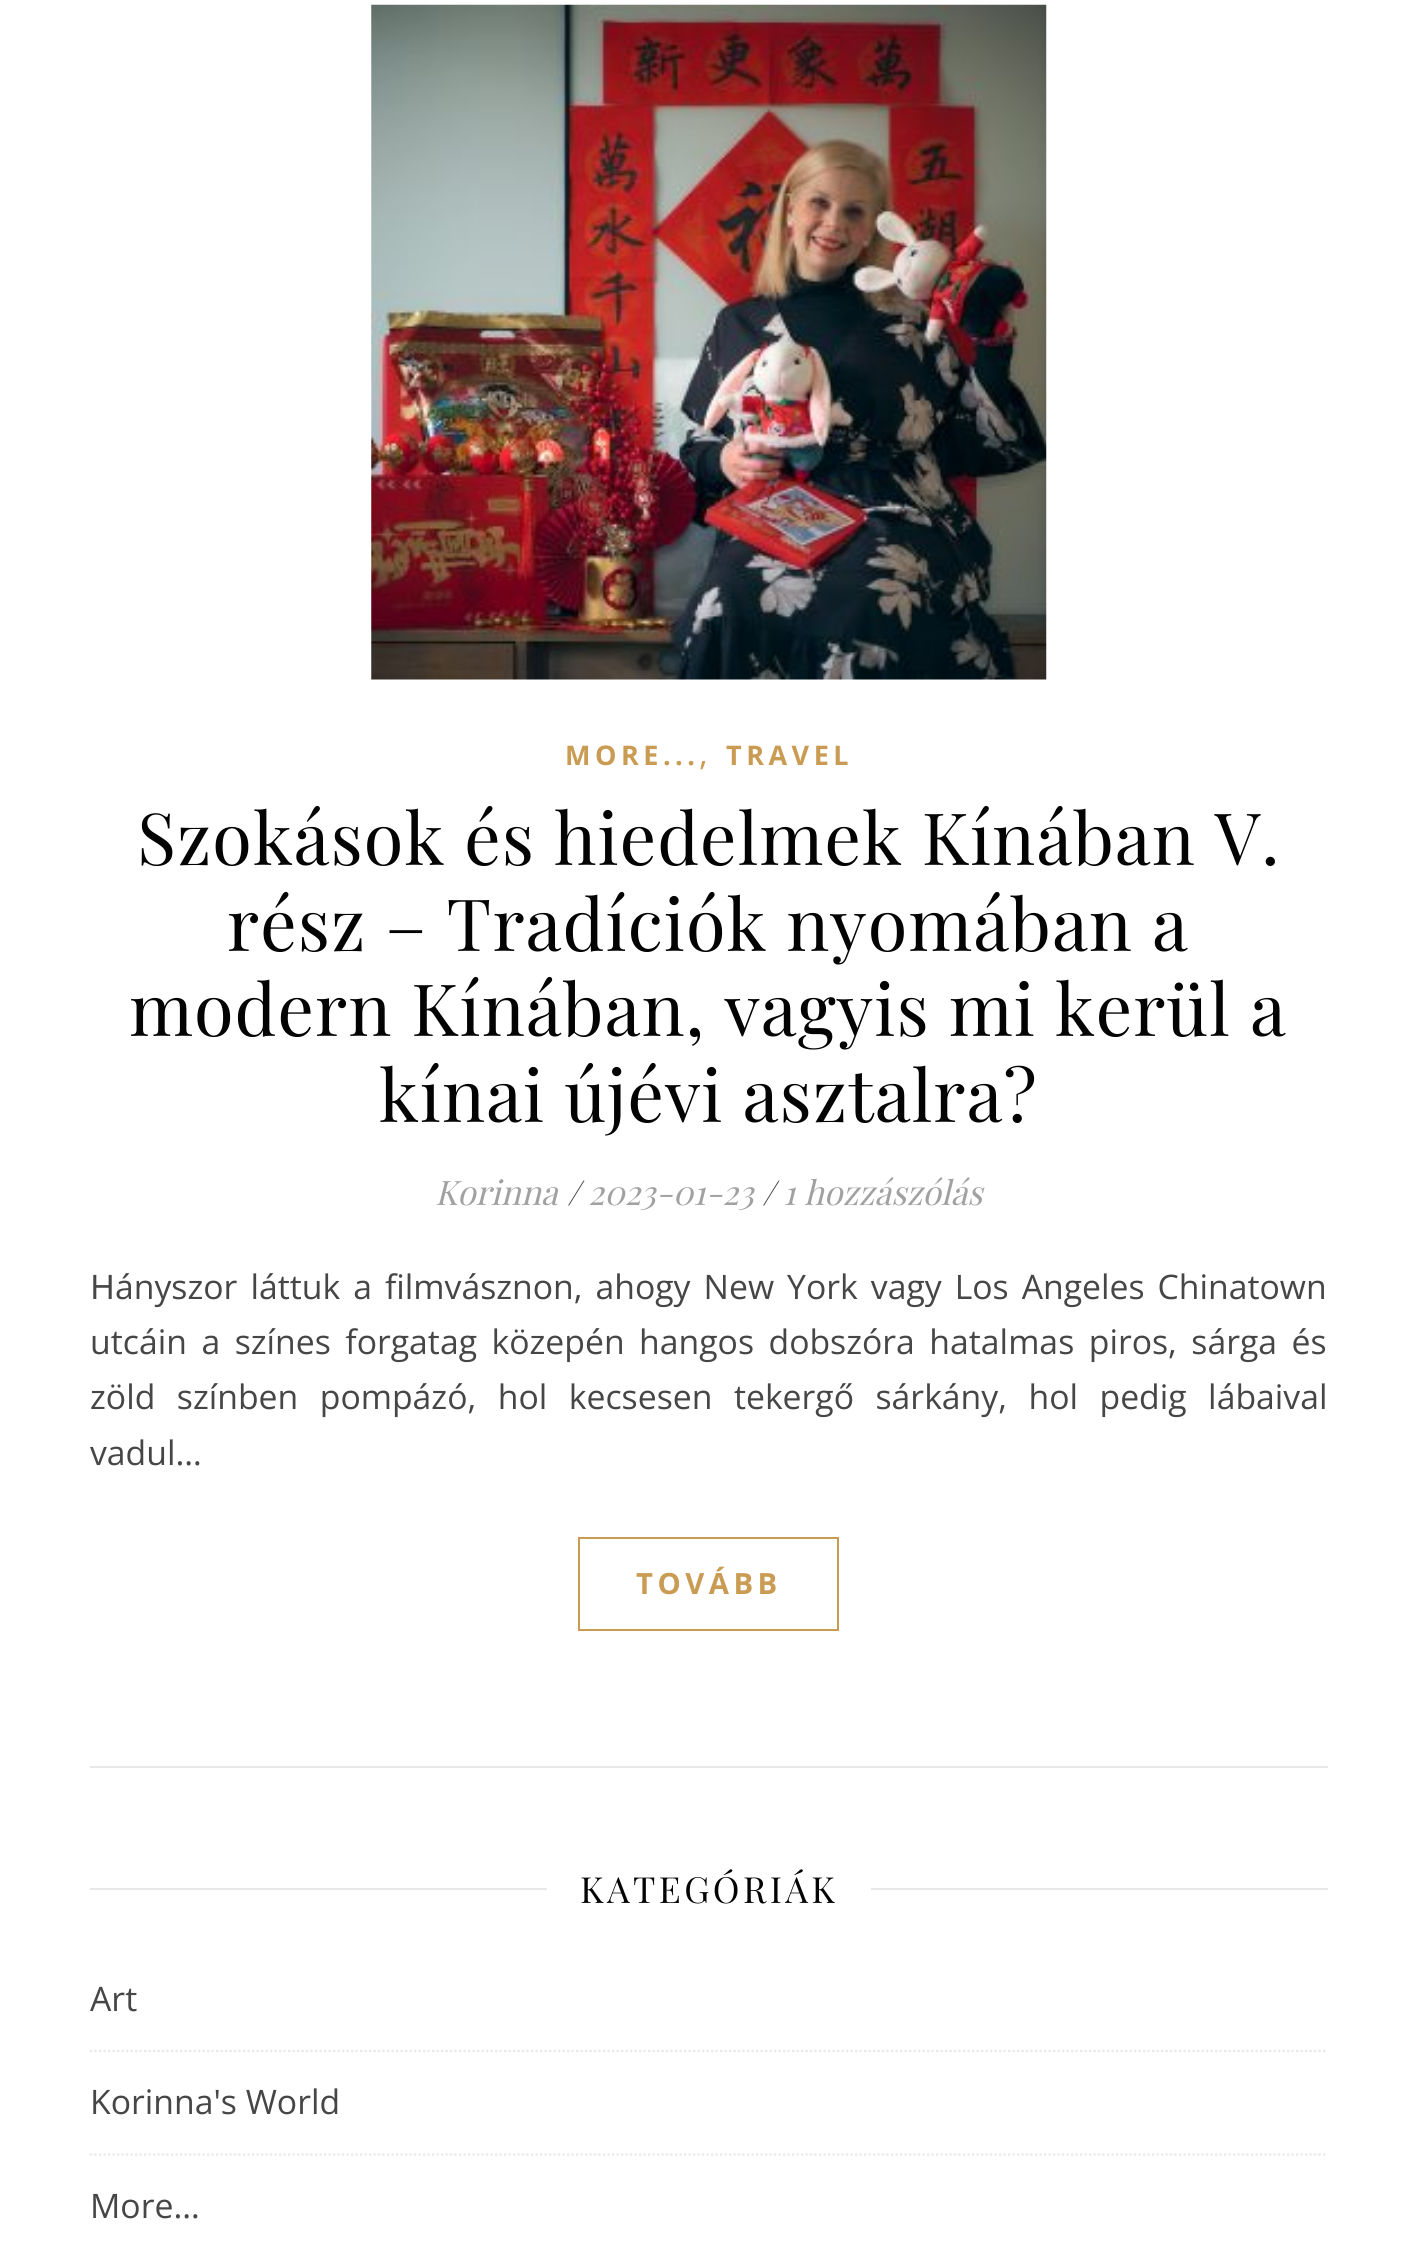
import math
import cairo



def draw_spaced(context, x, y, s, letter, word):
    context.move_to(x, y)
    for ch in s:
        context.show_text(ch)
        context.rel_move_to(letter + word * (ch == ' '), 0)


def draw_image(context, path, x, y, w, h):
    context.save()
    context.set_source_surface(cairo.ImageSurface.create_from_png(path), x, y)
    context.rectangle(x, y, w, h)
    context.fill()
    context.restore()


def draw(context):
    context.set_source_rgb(1, 1, 1)
    context.paint()
    context.set_source_rgb(232 / 255, 232 / 255, 232 / 255)
    context.rectangle(90, 1766, 1238, 2)
    context.fill()
    draw_image(context, "images/1.png", 371, 4, 676, 676)
    context.rectangle(579, 1538, 259, 92)
    context.set_source_rgb(202 / 255, 155 / 255, 82 / 255)
    context.stroke()
    context.set_source_rgb(232 / 255, 232 / 255, 232 / 255)
    context.rectangle(90, 1888, 457, 2)
    context.fill()
    context.rectangle(871, 1888, 457, 2)
    context.fill()
    context.new_path()
    context.move_to(90, 2051)
    context.line_to(1327.5, 2051)
    context.set_line_width(2.2)
    context.set_dash([2.25, 2.25])
    context.stroke()
    context.new_path()
    context.move_to(90, 2154.5)
    context.line_to(1327.5, 2154.5)
    context.stroke()
    context.select_font_face("Open Sans", cairo.FontSlant.NORMAL, cairo.FontWeight.BOLD)
    context.set_font_size(27)
    context.set_source_rgb(202 / 255, 155 / 255, 82 / 255)
    draw_spaced(context, 565, 765, "MORE...", 4.5, 0)
    context.select_font_face("Open Sans")
    context.set_font_size(33.75)
    context.move_to(699, 765)
    context.show_text(",")
    context.select_font_face("Open Sans", cairo.FontSlant.NORMAL, cairo.FontWeight.BOLD)
    context.set_font_size(27)
    draw_spaced(context, 726, 765, "TRAVEL", 4.5, 0)
    context.select_font_face("Playfair Display")
    context.set_font_size(72)
    context.set_source_rgb(3 / 255, 3 / 255, 3 / 255)
    draw_spaced(context, 137, 865, "Szokások és hiedelmek Kínában V.", 1.1, 0)
    draw_spaced(context, 227, 951, "rész – Tradíciók nyomában a", 1.1, 0)
    draw_spaced(context, 129, 1036, "modern Kínában, vagyis mi kerül a", 1.1, 0)
    draw_spaced(context, 379, 1122, "kínai újévi asztalra?", 1.1, 0)
    context.select_font_face("Playfair Display", cairo.FontSlant.ITALIC)
    context.set_font_size(33.75)
    context.set_source_rgb(161 / 255, 161 / 255, 161 / 255)
    context.move_to(435, 1205)
    context.show_text("Korinna")
    context.set_source_rgb(70 / 255, 70 / 255, 70 / 255)
    context.move_to(567, 1205)
    context.show_text("/")
    context.set_source_rgb(161 / 255, 161 / 255, 161 / 255)
    context.move_to(588, 1205)
    context.show_text("2023-01-23")
    context.set_source_rgb(70 / 255, 70 / 255, 70 / 255)
    context.move_to(762, 1205)
    context.show_text("/")
    context.set_source_rgb(161 / 255, 161 / 255, 161 / 255)
    context.move_to(783, 1205)
    context.show_text("1 hozzászólás")
    context.select_font_face("Noto Sans")
    context.set_source_rgb(70 / 255, 70 / 255, 70 / 255)
    context.move_to(90, 1299)
    context.show_text("H")
    context.select_font_face("Open Sans")
    draw_spaced(context, 115, 1299, "ányszor láttuk a filmvásznon, ahogy New York vagy Los Angeles Chinatown", 0, 4.25)
    draw_spaced(context, 90, 1354, "utcáin a színes forgatag közepén hangos dobszóra hatalmas piros, sárga és", 0, 5.75)
    draw_spaced(context, 90, 1409, "zöld színben pompázó, hol kecsesen tekergő sárkány, hol pedig lábaival", 0, 12.75)
    context.move_to(90, 1465)
    context.show_text("vadul…")
    context.select_font_face("Open Sans", cairo.FontSlant.NORMAL, cairo.FontWeight.BOLD)
    context.set_font_size(29.25)
    context.set_source_rgb(202 / 255, 155 / 255, 82 / 255)
    draw_spaced(context, 636, 1594, "TOVÁBB", 4.5, 0)
    context.select_font_face("Playfair Display")
    context.set_font_size(36)
    context.set_source_rgb(3 / 255, 3 / 255, 3 / 255)
    draw_spaced(context, 580, 1903, "KATEGÓRIÁK", 3.4, 0)
    context.select_font_face("Open Sans")
    context.set_font_size(33.75)
    context.set_source_rgb(70 / 255, 70 / 255, 70 / 255)
    context.move_to(90, 2011)
    context.show_text("Art")
    context.move_to(90, 2114)
    context.show_text("Korinna's World")
    context.move_to(90, 2218)
    context.show_text("More…")


surface = cairo.ImageSurface(cairo.Format.RGB24, 1417, 2250)
context = cairo.Context(surface)
options = cairo.FontOptions()
options.set_hint_metrics(cairo.HintMetrics.OFF)
options.set_hint_style(cairo.HintStyle.NONE)
context.set_font_options(options)
context.set_miter_limit(4)
draw(context)
surface.write_to_png("out.png")
